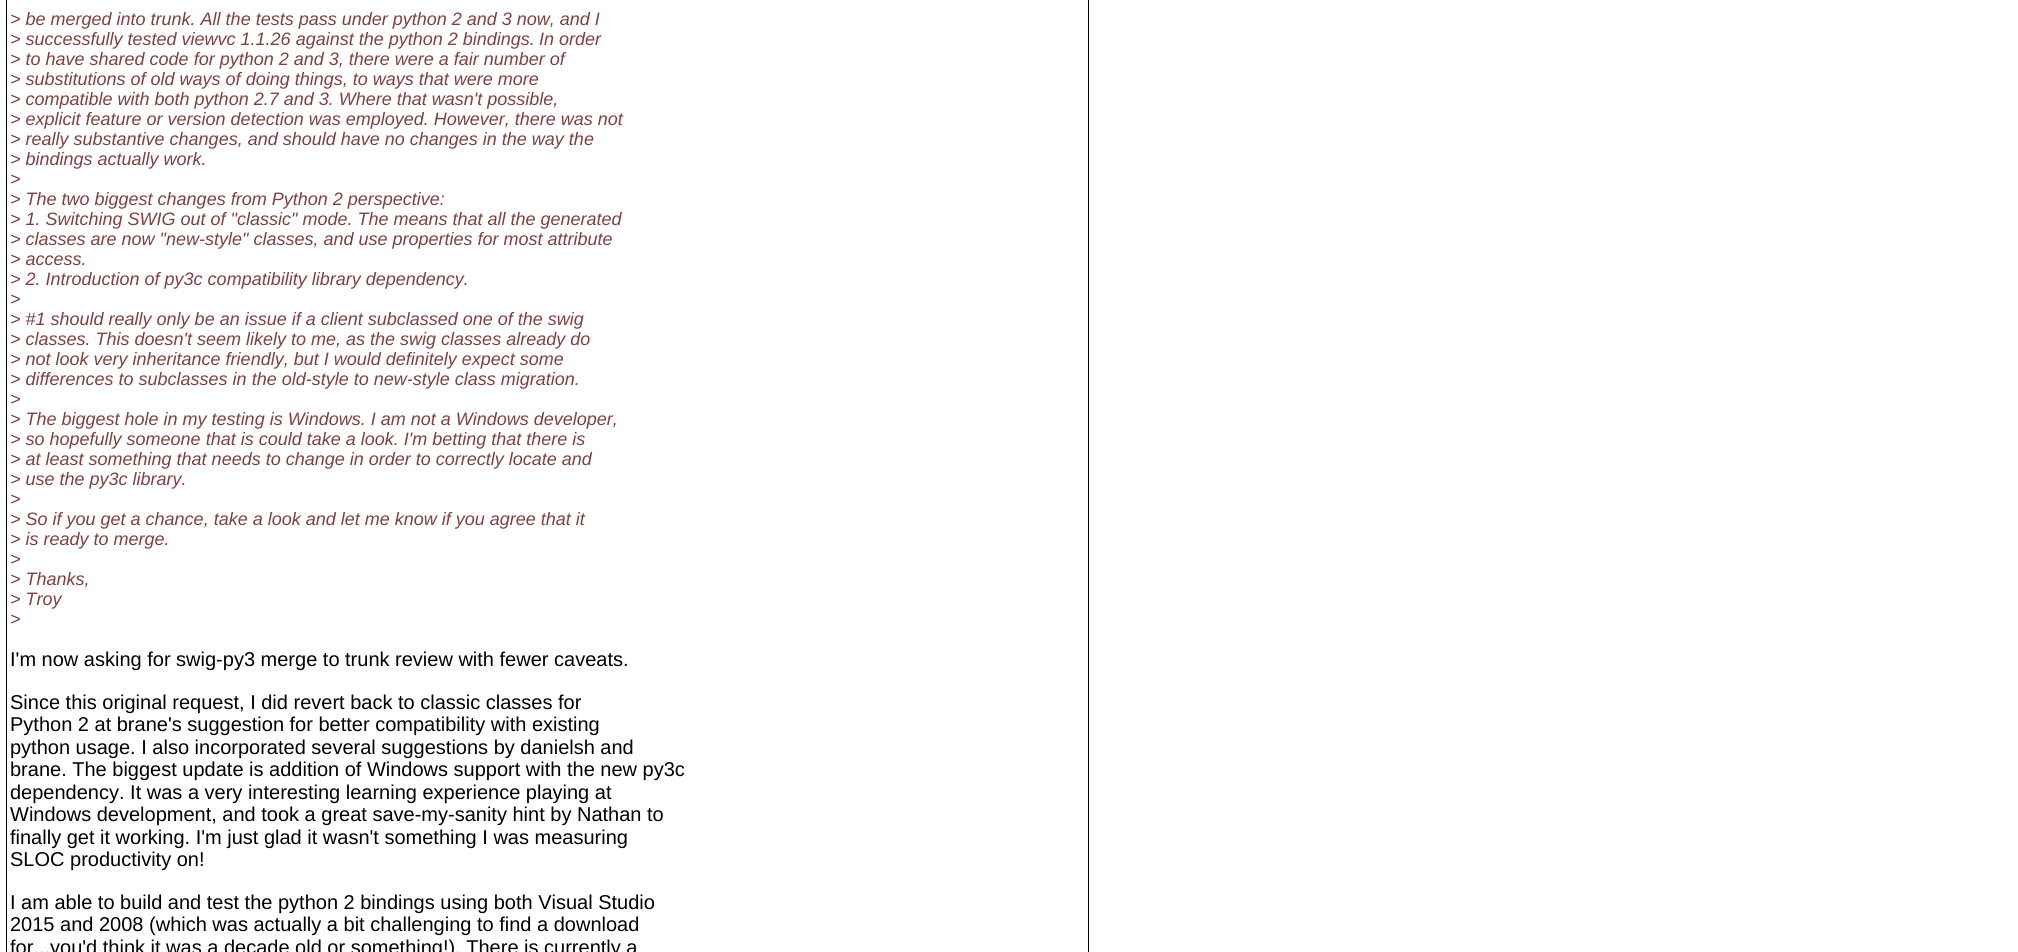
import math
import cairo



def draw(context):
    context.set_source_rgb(1, 1, 1)
    context.paint()
    context.rectangle(6.5, -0.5, 1082, 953)
    context.set_source_rgb(0, 0, 0)
    context.set_line_width(1)
    context.stroke()
    context.select_font_face("Liberation Sans", cairo.FontSlant.ITALIC)
    context.set_font_size(18)
    context.set_source_rgb(128 / 255, 64 / 255, 64 / 255)
    context.move_to(10, 25)
    context.show_text("> be merged into trunk. All the tests pass under python 2 and 3 now, and I")
    context.move_to(10, 45)
    context.show_text("> successfully tested viewvc 1.1.26 against the python 2 bindings.")
    context.move_to(539, 45)
    context.show_text("In order")
    context.move_to(10, 65)
    context.show_text("> to have shared code for python 2 and 3, there were a fair number of")
    context.move_to(10, 85)
    context.show_text("> substitutions of old ways of doing things, to ways that were more")
    context.move_to(10, 105)
    context.show_text("> compatible with both python 2.7 and 3. Where that wasn't possible,")
    context.move_to(10, 125)
    context.show_text("> explicit feature or version detection was employed. However, there was not")
    context.move_to(10, 145)
    context.show_text("> really substantive changes, and should have no changes in the way the")
    context.move_to(10, 165)
    context.show_text("> bindings actually work.")
    context.move_to(10, 185)
    context.show_text(">")
    context.move_to(10, 205)
    context.show_text("> The two biggest changes from Python 2 perspective:")
    context.move_to(10, 225)
    context.show_text("> 1. Switching SWIG out of \"classic\" mode. The means that all the generated")
    context.move_to(10, 245)
    context.show_text("> classes are now \"new-style\" classes, and use properties for most attribute")
    context.move_to(10, 265)
    context.show_text("> access.")
    context.move_to(10, 285)
    context.show_text("> 2. Introduction of py3c compatibility library dependency.")
    context.move_to(10, 305)
    context.show_text(">")
    context.move_to(10, 325)
    context.show_text("> #1 should really only be an issue if a client subclassed one of the swig")
    context.move_to(10, 345)
    context.show_text("> classes. This doesn't seem likely to me, as the swig classes already do")
    context.move_to(10, 365)
    context.show_text("> not look very inheritance friendly, but I would definitely expect some")
    context.move_to(10, 385)
    context.show_text("> differences to subclasses in the old-style to new-style class migration.")
    context.move_to(10, 405)
    context.show_text(">")
    context.move_to(10, 425)
    context.show_text("> The biggest hole in my testing is Windows. I am not a Windows developer,")
    context.move_to(10, 445)
    context.show_text("> so hopefully someone that is could take a look. I'm betting that there is")
    context.move_to(10, 465)
    context.show_text("> at least something that needs to change in order to correctly locate and")
    context.move_to(10, 485)
    context.show_text("> use the py3c library.")
    context.move_to(10, 505)
    context.show_text(">")
    context.move_to(10, 525)
    context.show_text("> So if you get a chance, take a look and let me know if you agree that it")
    context.move_to(10, 545)
    context.show_text("> is ready to merge.")
    context.move_to(10, 565)
    context.show_text(">")
    context.move_to(10, 585)
    context.show_text("> Thanks,")
    context.move_to(10, 605)
    context.show_text("> Troy")
    context.move_to(10, 625)
    context.show_text(">")
    context.select_font_face("Liberation Sans")
    context.set_font_size(20)
    context.set_source_rgb(0, 0, 0)
    context.move_to(10, 666)
    context.show_text("I'm now asking for swig-py3 merge to trunk review with fewer caveats.")
    context.move_to(10, 709)
    context.show_text("Since this original request, I did revert back to classic classes for")
    context.move_to(10, 731)
    context.show_text("Python 2 at brane's suggestion for better compatibility with existing")
    context.move_to(10, 754)
    context.show_text("python usage. I also incorporated several suggestions by danielsh and")
    context.move_to(10, 776)
    context.show_text("brane. The biggest update is addition of Windows support with the new py3c")
    context.move_to(10, 799)
    context.show_text("dependency. It was a very interesting learning experience playing at")
    context.move_to(10, 821)
    context.show_text("Windows development, and took a great save-my-sanity hint by Nathan to")
    context.move_to(10, 844)
    context.show_text("finally get it working. I'm just glad it wasn't something I was measuring")
    context.move_to(10, 866)
    context.show_text("SLOC productivity on!")
    context.move_to(10, 909)
    context.show_text("I am able to build and test the python 2 bindings using both Visual Studio")
    context.move_to(10, 931)
    context.show_text("2015 and 2008 (which was actually a bit challenging to find a download")
    context.move_to(10, 954)
    context.show_text("for...you'd think it was a decade old or something!). There is currently a")


surface = cairo.ImageSurface(cairo.Format.RGB24, 2018, 952)
context = cairo.Context(surface)
options = cairo.FontOptions()
options.set_hint_metrics(cairo.HintMetrics.OFF)
options.set_hint_style(cairo.HintStyle.NONE)
context.set_font_options(options)
context.set_miter_limit(4)
draw(context)
surface.write_to_png("out.png")
